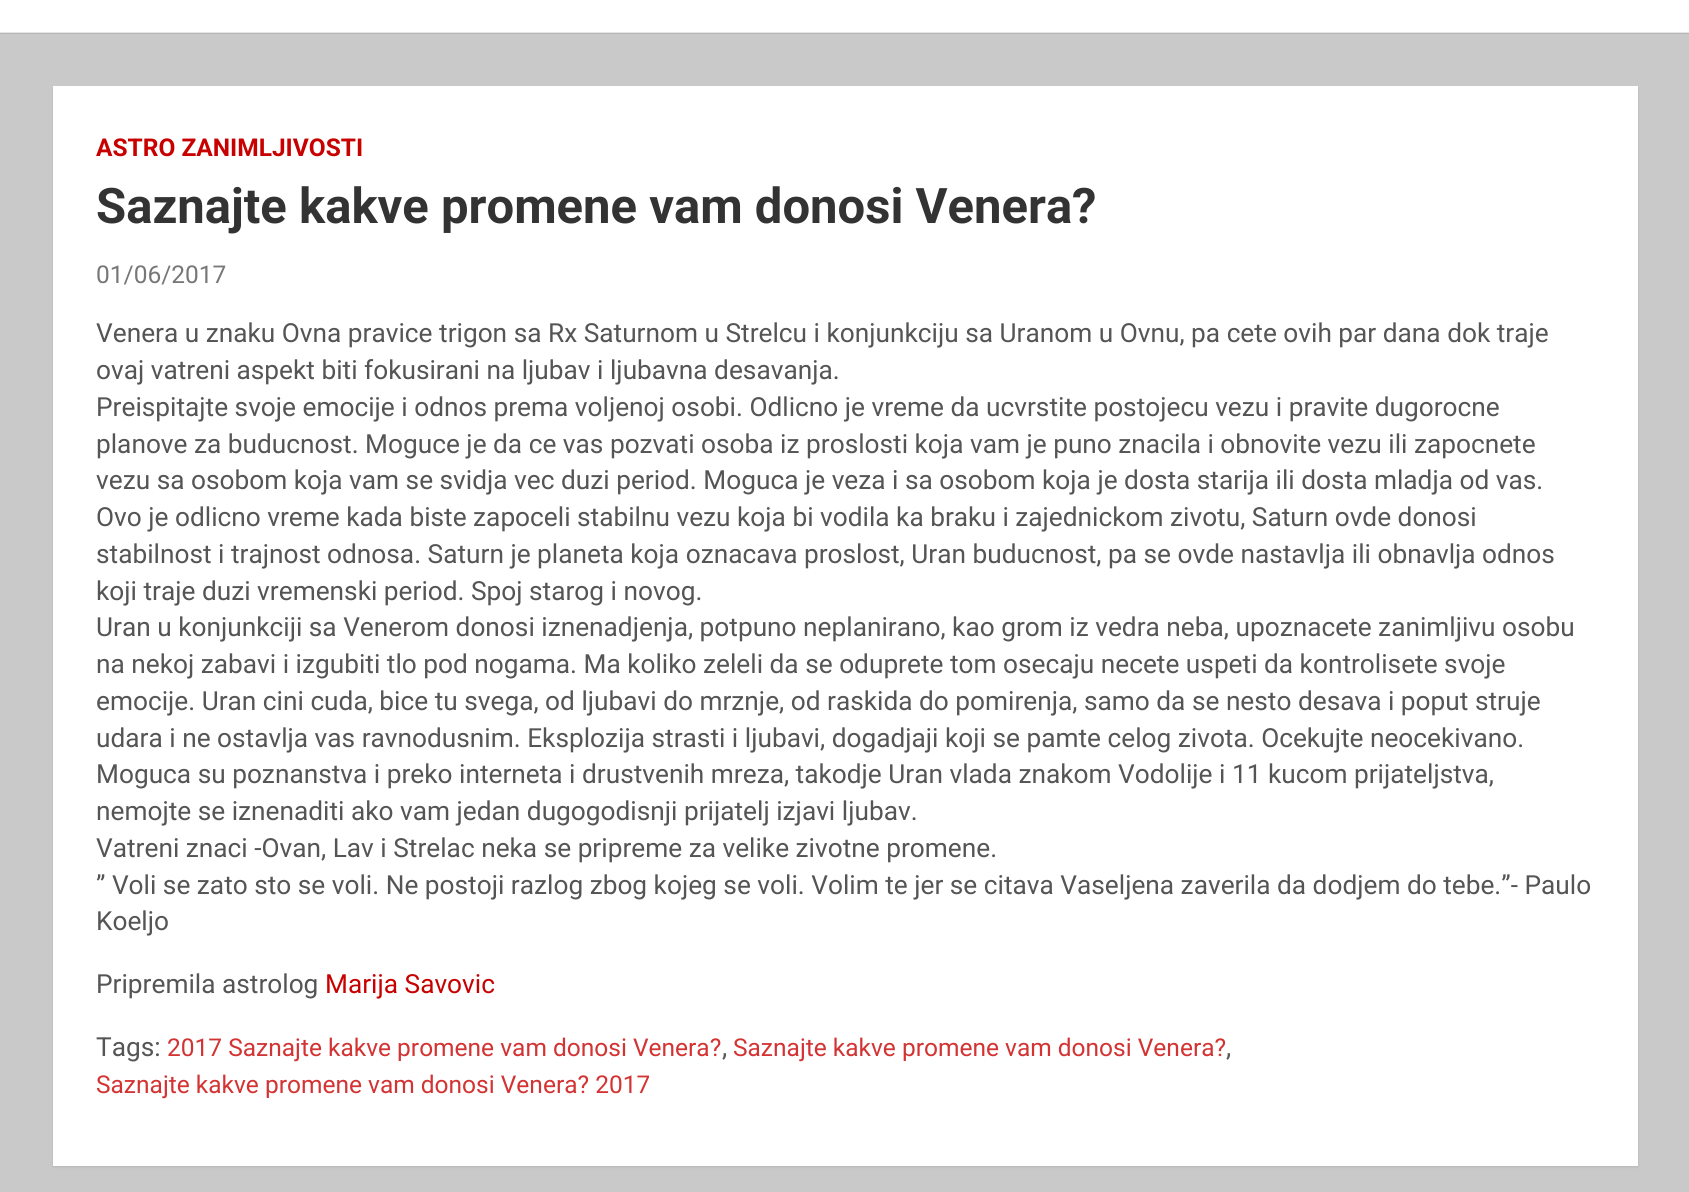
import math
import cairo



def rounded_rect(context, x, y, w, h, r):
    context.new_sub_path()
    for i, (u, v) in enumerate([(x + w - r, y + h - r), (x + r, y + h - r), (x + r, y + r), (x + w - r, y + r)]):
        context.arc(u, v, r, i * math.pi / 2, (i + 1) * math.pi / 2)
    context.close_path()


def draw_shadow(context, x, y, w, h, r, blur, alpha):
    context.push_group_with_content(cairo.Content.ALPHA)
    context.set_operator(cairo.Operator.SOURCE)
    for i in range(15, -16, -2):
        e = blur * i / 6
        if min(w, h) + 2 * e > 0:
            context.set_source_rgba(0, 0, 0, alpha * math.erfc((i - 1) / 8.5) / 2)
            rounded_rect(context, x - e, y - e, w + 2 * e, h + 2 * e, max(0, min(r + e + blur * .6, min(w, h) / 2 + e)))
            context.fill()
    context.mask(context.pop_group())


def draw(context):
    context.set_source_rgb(201 / 255, 201 / 255, 201 / 255)
    context.paint()
    context.set_source_rgb(181 / 255, 181 / 255, 181 / 255)
    context.rectangle(0, 33, 1689, 1)
    context.fill()
    context.set_source_rgb(1, 1, 1)
    context.rectangle(0, 0, 1689, 32)
    context.fill()
    context.set_source_rgb(230 / 255, 230 / 255, 230 / 255)
    context.rectangle(0, 32, 1689, 1)
    context.fill()
    context.set_source_rgb(0, 0, 0)
    draw_shadow(context, 53, 88, 1585, 1079, 0, 1, 0.1)
    context.set_source_rgb(1, 1, 1)
    context.rectangle(53, 86, 1585, 1080)
    context.fill()
    context.select_font_face("Roboto", cairo.FontSlant.NORMAL, cairo.FontWeight.BOLD)
    context.set_font_size(24.5)
    context.set_source_rgb(200 / 255, 0, 0)
    context.move_to(96, 156)
    context.show_text("ASTRO ZANIMLJIVOSTI")
    context.set_font_size(49)
    context.set_source_rgb(51 / 255, 51 / 255, 51 / 255)
    context.move_to(96, 223)
    context.show_text("Saznajte kakve promene vam donosi Venera?")
    context.select_font_face("Roboto")
    context.set_font_size(24.5)
    context.set_source_rgb(119 / 255, 119 / 255, 119 / 255)
    context.move_to(96, 283)
    context.show_text("01/06/2017")
    context.set_font_size(26.25)
    context.set_source_rgb(85 / 255, 85 / 255, 85 / 255)
    context.move_to(96, 342)
    context.show_text("Venera u znaku Ovna pravice trigon sa Rx Saturnom u Strelcu i konjunkciju sa Uranom u Ovnu, pa cete ovih par dana dok traje")
    context.move_to(96, 379)
    context.show_text("ovaj vatreni aspekt biti fokusirani na ljubav i ljubavna desavanja.")
    context.move_to(96, 416)
    context.show_text("Preispitajte svoje emocije i odnos prema voljenoj osobi. Odlicno je vreme da ucvrstite postojecu vezu i pravite dugorocne")
    context.move_to(96, 453)
    context.show_text("planove za buducnost. Moguce je da ce vas pozvati osoba iz proslosti koja vam je puno znacila i obnovite vezu ili zapocnete")
    context.move_to(96, 489)
    context.show_text("vezu sa osobom koja vam se svidja vec duzi period. Moguca je veza i sa osobom koja je dosta starija ili dosta mladja od vas.")
    context.move_to(96, 526)
    context.show_text("Ovo je odlicno vreme kada biste zapoceli stabilnu vezu koja bi vodila ka braku i zajednickom zivotu, Saturn ovde donosi")
    context.move_to(96, 563)
    context.show_text("stabilnost i trajnost odnosa. Saturn je planeta koja oznacava proslost, Uran buducnost, pa se ovde nastavlja ili obnavlja odnos")
    context.move_to(96, 600)
    context.show_text("koji traje duzi vremenski period. Spoj starog i novog.")
    context.move_to(96, 636)
    context.show_text("Uran u konjunkciji sa Venerom donosi iznenadjenja, potpuno neplanirano, kao grom iz vedra neba, upoznacete zanimljivu osobu")
    context.move_to(96, 673)
    context.show_text("na nekoj zabavi i izgubiti tlo pod nogama. Ma koliko zeleli da se oduprete tom osecaju necete uspeti da kontrolisete svoje")
    context.move_to(96, 710)
    context.show_text("emocije. Uran cini cuda, bice tu svega, od ljubavi do mrznje, od raskida do pomirenja, samo da se nesto desava i poput struje")
    context.move_to(96, 747)
    context.show_text("udara i ne ostavlja vas ravnodusnim. Eksplozija strasti i ljubavi, dogadjaji koji se pamte celog zivota. Ocekujte neocekivano.")
    context.move_to(96, 783)
    context.show_text("Moguca su poznanstva i preko interneta i drustvenih mreza, takodje Uran vlada znakom Vodolije i 11 kucom prijateljstva,")
    context.move_to(96, 820)
    context.show_text("nemojte se iznenaditi ako vam jedan dugogodisnji prijatelj izjavi ljubav.")
    context.move_to(96, 857)
    context.show_text("Vatreni znaci -Ovan, Lav i Strelac neka se pripreme za velike zivotne promene.")
    context.move_to(96, 894)
    context.show_text("” Voli se zato sto se voli. Ne postoji razlog zbog kojeg se voli. Volim te jer se citava Vaseljena zaverila da dodjem do tebe.”- Paulo")
    context.move_to(96, 930)
    context.show_text("Koeljo")
    context.move_to(96, 993)
    context.show_text("Pripremila astrolog")
    context.set_source_rgb(200 / 255, 0, 0)
    context.move_to(325, 993)
    context.show_text("Marija Savovic")
    context.set_source_rgb(85 / 255, 85 / 255, 85 / 255)
    context.move_to(96, 1056)
    context.show_text("Tags:")
    context.set_font_size(24.5)
    context.set_source_rgb(211 / 255, 51 / 255, 51 / 255)
    context.move_to(167, 1056)
    context.show_text("2017 Saznajte kakve promene vam donosi Venera?")
    context.set_font_size(26.25)
    context.set_source_rgb(85 / 255, 85 / 255, 85 / 255)
    context.move_to(722, 1056)
    context.show_text(",")
    context.set_font_size(24.5)
    context.set_source_rgb(211 / 255, 51 / 255, 51 / 255)
    context.move_to(733, 1056)
    context.show_text("Saznajte kakve promene vam donosi Venera?")
    context.set_font_size(26.25)
    context.set_source_rgb(85 / 255, 85 / 255, 85 / 255)
    context.move_to(1226, 1056)
    context.show_text(",")
    context.set_font_size(24.5)
    context.set_source_rgb(211 / 255, 51 / 255, 51 / 255)
    context.move_to(96, 1093)
    context.show_text("Saznajte kakve promene vam donosi Venera? 2017")


surface = cairo.ImageSurface(cairo.Format.RGB24, 1689, 1192)
context = cairo.Context(surface)
options = cairo.FontOptions()
options.set_hint_metrics(cairo.HintMetrics.OFF)
options.set_hint_style(cairo.HintStyle.NONE)
context.set_font_options(options)
context.set_miter_limit(4)
draw(context)
surface.write_to_png("out.png")
